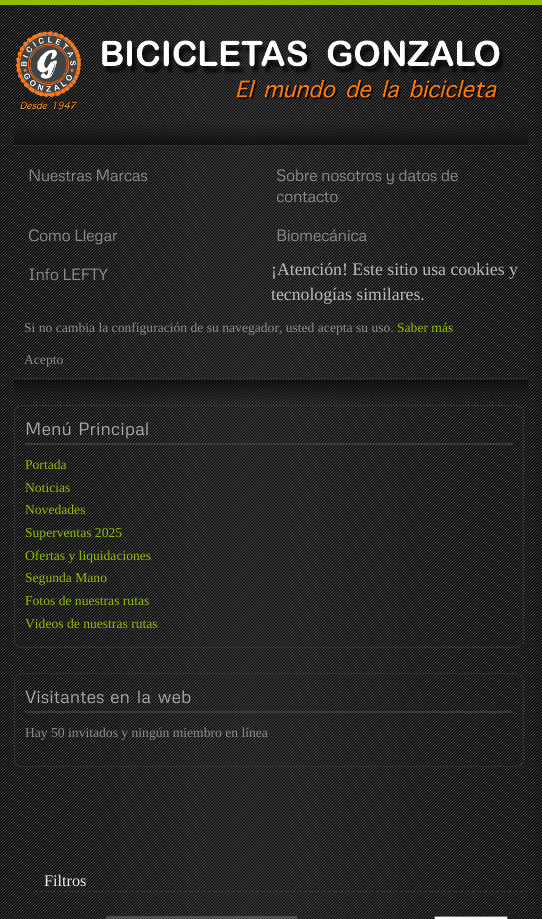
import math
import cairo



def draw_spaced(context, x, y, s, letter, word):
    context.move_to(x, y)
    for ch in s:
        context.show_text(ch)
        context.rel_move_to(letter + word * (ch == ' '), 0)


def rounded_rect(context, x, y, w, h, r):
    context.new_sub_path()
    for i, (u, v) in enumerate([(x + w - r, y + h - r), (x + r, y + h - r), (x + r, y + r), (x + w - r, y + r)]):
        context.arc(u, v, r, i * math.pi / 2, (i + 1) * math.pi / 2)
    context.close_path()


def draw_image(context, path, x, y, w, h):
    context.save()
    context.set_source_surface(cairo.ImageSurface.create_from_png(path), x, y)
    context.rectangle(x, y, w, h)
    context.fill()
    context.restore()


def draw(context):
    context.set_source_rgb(0, 0, 0)
    context.paint()
    draw_image(context, "images/1.png", 0, 5, 542, 914)
    draw_image(context, "images/2.png", 0, 5, 542, 914)
    context.set_source_rgb(143 / 255, 190 / 255, 0)
    context.rectangle(0, 0, 542, 5)
    context.fill()
    draw_image(context, "images/3.png", 14, 125, 514, 20)
    context.set_source_rgb(47 / 255, 47 / 255, 47 / 255)
    context.rectangle(14, 145, 514, 1)
    context.fill()
    draw_image(context, "images/4.png", 15, 31, 490, 79)
    draw_image(context, "images/5.png", 14, 380, 514, 20)
    context.rectangle(14, 378, 514, 1)
    context.fill()
    rounded_rect(context, 14.5, 405.5, 509, 242, 7.5)
    context.set_source_rgb(51 / 255, 51 / 255, 51 / 255)
    context.set_line_width(1)
    context.stroke()
    context.set_source_rgb(58 / 255, 58 / 255, 58 / 255)
    context.rectangle(25, 443, 488, 2)
    context.fill()
    rounded_rect(context, 14.5, 673.5, 509, 93, 7.5)
    context.set_source_rgb(51 / 255, 51 / 255, 51 / 255)
    context.stroke()
    context.set_source_rgb(58 / 255, 58 / 255, 58 / 255)
    context.rectangle(25, 711, 488, 2)
    context.fill()
    context.new_path()
    context.move_to(34, 891.5)
    context.line_to(528, 891.5)
    context.set_source_rgb(68 / 255, 68 / 255, 68 / 255)
    context.set_dash([1, 1])
    context.stroke()
    context.set_source_rgba(1, 1, 1, 0.2)
    context.rectangle(106, 916, 191, 3)
    context.fill()
    context.set_source_rgb(1, 1, 1)
    rounded_rect(context, 434.5, 916.5, 73, 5, 1.5)
    context.fill_preserve()
    context.set_source_rgb(118 / 255, 118 / 255, 118 / 255)
    context.set_dash([])
    context.stroke()
    context.select_font_face("Metrophobic")
    context.set_font_size(16.25)
    context.set_source_rgb(140 / 255, 140 / 255, 140 / 255)
    draw_spaced(context, 28, 181, "Nuestras Marcas", -0.5, 0)
    draw_spaced(context, 276, 181, "Sobre nosotros y datos de", -0.5, 0)
    draw_spaced(context, 276, 202, "contacto", -0.5, 0)
    draw_spaced(context, 28, 241, "Como Llegar", -0.5, 0)
    draw_spaced(context, 276, 241, "Biomecánica", -0.5, 0)
    draw_spaced(context, 28, 280, "Info LEFTY", -0.5, 0)
    context.select_font_face("Liberation Serif")
    context.set_font_size(17.75)
    context.set_source_rgb(187 / 255, 187 / 255, 187 / 255)
    context.move_to(271, 275)
    context.show_text("¡Atención! Este sitio usa cookies y")
    context.move_to(271, 300)
    context.show_text("tecnologías similares.")
    context.set_font_size(13.6)
    context.set_source_rgb(140 / 255, 140 / 255, 140 / 255)
    context.move_to(24, 332)
    context.show_text("Si no cambia la configuración de su navegador, usted acepta su uso.")
    context.set_source_rgb(143 / 255, 190 / 255, 0)
    context.move_to(397, 332)
    context.show_text("Saber más")
    context.set_source_rgb(140 / 255, 140 / 255, 140 / 255)
    context.move_to(24, 364)
    context.show_text("Acepto")
    context.select_font_face("Metrophobic")
    context.set_font_size(17.75)
    context.set_source_rgb(170 / 255, 170 / 255, 170 / 255)
    context.move_to(25, 435)
    context.show_text("Menú")
    context.move_to(78, 435)
    context.show_text("Principal")
    context.select_font_face("Liberation Serif")
    context.set_font_size(13.6)
    context.set_source_rgb(143 / 255, 190 / 255, 0)
    context.move_to(25, 469)
    context.show_text("Portada")
    context.move_to(25, 492)
    context.show_text("Noticias")
    context.move_to(25, 514)
    context.show_text("Novedades")
    context.move_to(25, 537)
    context.show_text("Superventas 2025")
    context.move_to(25, 560)
    context.show_text("Ofertas y liquidaciones")
    context.move_to(25, 582)
    context.show_text("Segunda Mano")
    context.move_to(25, 605)
    context.show_text("Fotos de nuestras rutas")
    context.move_to(25, 628)
    context.show_text("Videos de nuestras rutas")
    context.select_font_face("Metrophobic")
    context.set_font_size(17.75)
    context.set_source_rgb(170 / 255, 170 / 255, 170 / 255)
    context.move_to(25, 703)
    context.show_text("Visitantes")
    draw_spaced(context, 110, 703, "en la web", 0, 2)
    context.select_font_face("Liberation Serif")
    context.set_font_size(13.6)
    context.set_source_rgb(140 / 255, 140 / 255, 140 / 255)
    context.move_to(25, 737)
    context.show_text("Hay 50 invitados y ningún miembro en línea")
    context.set_font_size(16.25)
    context.set_source_rgb(238 / 255, 238 / 255, 238 / 255)
    context.move_to(44, 886)
    context.show_text("Filtros")


surface = cairo.ImageSurface(cairo.Format.RGB24, 542, 919)
context = cairo.Context(surface)
options = cairo.FontOptions()
options.set_hint_metrics(cairo.HintMetrics.OFF)
options.set_hint_style(cairo.HintStyle.NONE)
context.set_font_options(options)
context.set_miter_limit(4)
draw(context)
surface.write_to_png("out.png")
